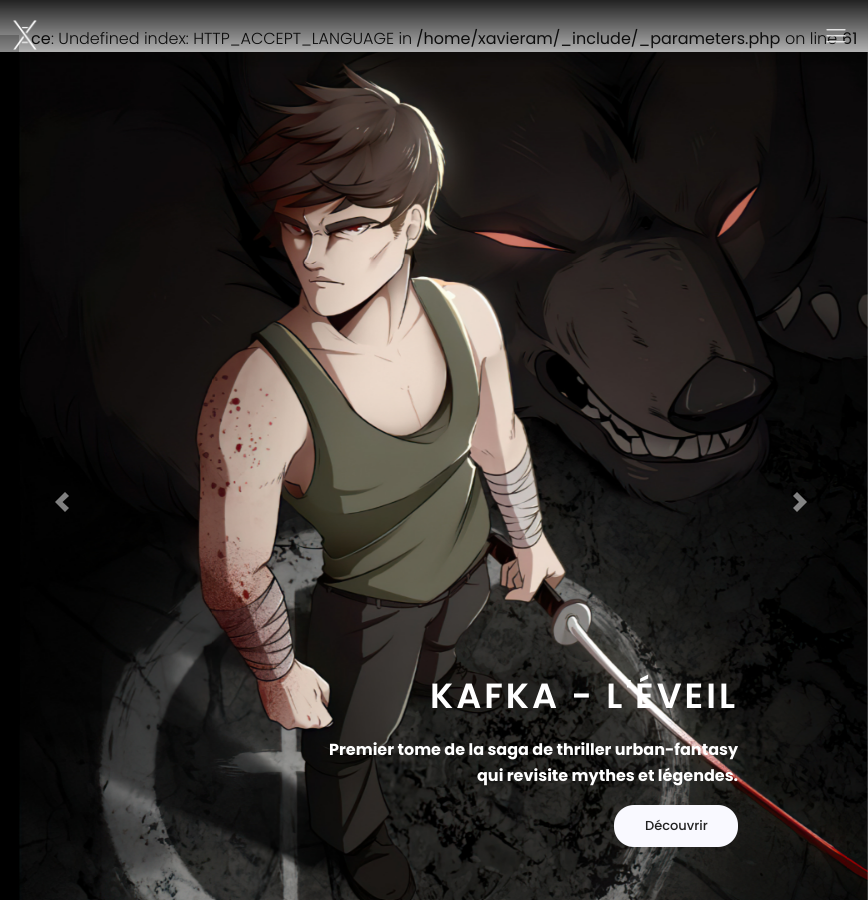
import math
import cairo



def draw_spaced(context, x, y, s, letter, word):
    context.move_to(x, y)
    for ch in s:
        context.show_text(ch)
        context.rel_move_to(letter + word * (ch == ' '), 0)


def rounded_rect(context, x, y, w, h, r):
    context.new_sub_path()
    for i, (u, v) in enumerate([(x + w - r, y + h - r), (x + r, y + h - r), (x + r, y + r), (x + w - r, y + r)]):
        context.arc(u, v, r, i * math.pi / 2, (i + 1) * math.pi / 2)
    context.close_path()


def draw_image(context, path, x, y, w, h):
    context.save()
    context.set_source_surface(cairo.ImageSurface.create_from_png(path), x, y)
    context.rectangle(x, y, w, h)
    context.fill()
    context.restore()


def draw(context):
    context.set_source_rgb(227 / 255, 227 / 255, 227 / 255)
    context.paint()
    context.set_source_rgb(174 / 255, 174 / 255, 174 / 255)
    context.rectangle(0, 35, 19, 17)
    context.fill()
    draw_image(context, "images/3.png", 0, 52, 868, 848)
    context.set_source_rgb(128 / 255, 128 / 255, 128 / 255)
    context.new_path()
    context.move_to(65, 492)
    context.line_to(55, 502)
    context.line_to(65, 512)
    context.line_to(69, 508)
    context.line_to(62.5, 502)
    context.line_to(69, 496)
    context.close_path()
    context.fill()
    context.set_source_rgba(1, 1, 1, 0.5)
    context.new_path()
    context.move_to(797, 492)
    context.line_to(793, 496)
    context.line_to(799, 502)
    context.line_to(793, 508)
    context.line_to(797, 512)
    context.line_to(807, 502)
    context.close_path()
    context.fill()
    context.set_source_rgb(249 / 255, 249 / 255, 1)
    rounded_rect(context, 614, 805, 124, 42, 20)
    context.fill()
    context.select_font_face("Poppins")
    context.set_font_size(16)
    context.set_source_rgb(21 / 255, 21 / 255, 21 / 255)
    context.move_to(31, 44)
    context.show_text("ce")
    context.select_font_face("Poppins Light")
    context.move_to(51, 44)
    context.show_text(": Undefined index: HTTP_ACCEPT_LANGUAGE in")
    context.select_font_face("Poppins")
    context.move_to(416, 44)
    context.show_text("/home/xavieram/_include/_parameters.php")
    context.select_font_face("Poppins Light")
    context.move_to(785, 44)
    context.show_text("on line")
    context.select_font_face("Poppins")
    context.move_to(842, 44)
    context.show_text("61")
    gradient = cairo.LinearGradient(434, 0, 434, 70)
    gradient.add_color_stop_rgba(0, 0, 0, 0, 0.85)
    gradient.add_color_stop_rgba(1, 0, 0, 0, 0)
    context.set_source(gradient)
    context.rectangle(0, 0, 868, 67)
    context.fill()
    draw_image(context, "images/2.png", 826, 29, 20, 14)
    draw_image(context, "images/1.png", 13, 20, 24, 30)
    context.select_font_face("Poppins SemiBold")
    context.set_font_size(35)
    context.set_source_rgb(1, 1, 1)
    draw_spaced(context, 430, 708, "KAFKA - L'ÉVEIL", 3, 0)
    context.select_font_face("Poppins", cairo.FontSlant.NORMAL, cairo.FontWeight.BOLD)
    context.set_font_size(16)
    context.move_to(329, 755)
    context.show_text("Premier tome de la saga de thriller urban-fantasy")
    context.move_to(477, 781)
    context.show_text("qui revisite mythes et légendes.")
    context.select_font_face("Poppins Medium")
    context.set_font_size(13)
    context.set_source_rgb(34 / 255, 34 / 255, 34 / 255)
    context.move_to(645, 830)
    context.show_text("Découvrir")


surface = cairo.ImageSurface(cairo.Format.RGB24, 868, 900)
context = cairo.Context(surface)
options = cairo.FontOptions()
options.set_hint_metrics(cairo.HintMetrics.OFF)
options.set_hint_style(cairo.HintStyle.NONE)
context.set_font_options(options)
context.set_miter_limit(4)
draw(context)
surface.write_to_png("out.png")
